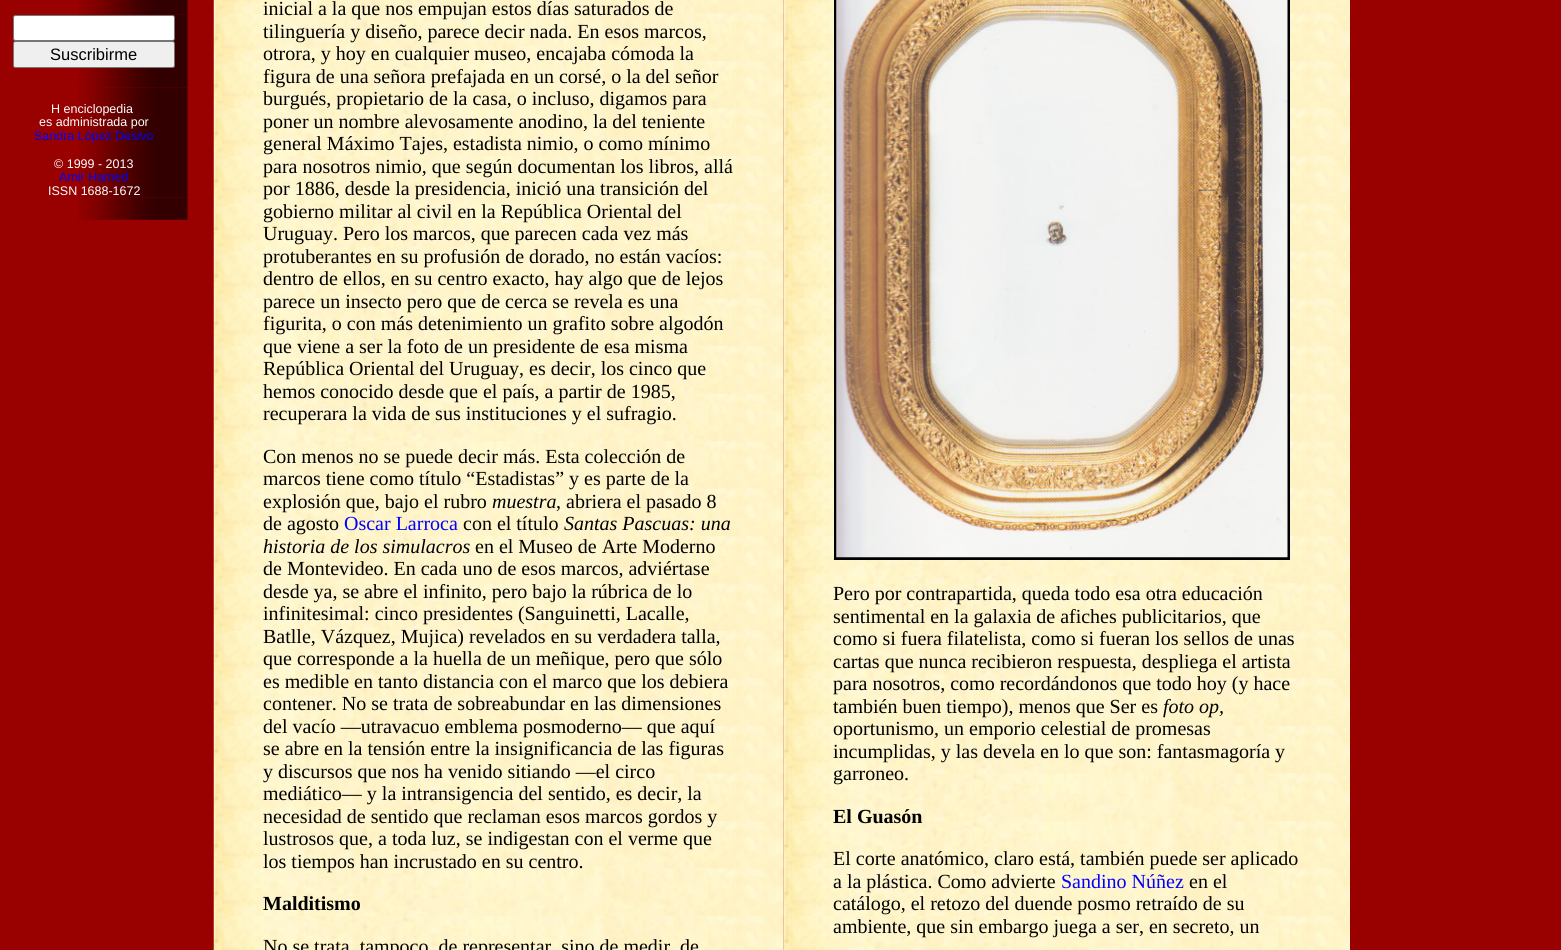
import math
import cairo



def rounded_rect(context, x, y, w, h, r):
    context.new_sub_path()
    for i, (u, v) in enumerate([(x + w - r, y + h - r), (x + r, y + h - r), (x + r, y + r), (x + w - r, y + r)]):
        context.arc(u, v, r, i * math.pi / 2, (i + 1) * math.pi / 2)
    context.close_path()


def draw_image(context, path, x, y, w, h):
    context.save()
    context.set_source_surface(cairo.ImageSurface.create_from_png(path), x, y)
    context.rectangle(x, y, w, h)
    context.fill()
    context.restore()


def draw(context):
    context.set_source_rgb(153 / 255, 0, 0)
    context.paint()
    draw_image(context, "images/1.png", 78, 0, 110, 15)
    draw_image(context, "images/2.png", 79, 14, 109, 74)
    context.set_source_rgb(1, 1, 1)
    rounded_rect(context, 13.5, 15.5, 161, 25, 2)
    context.fill_preserve()
    context.set_source_rgb(118 / 255, 118 / 255, 118 / 255)
    context.set_line_width(1)
    context.stroke()
    context.set_source_rgb(239 / 255, 239 / 255, 239 / 255)
    rounded_rect(context, 13.5, 41.5, 161, 26, 2)
    context.fill_preserve()
    context.set_source_rgb(118 / 255, 118 / 255, 118 / 255)
    context.stroke()
    draw_image(context, "images/3.png", 79, 87, 109, 111)
    draw_image(context, "images/4.png", 78, 197, 110, 23)
    draw_image(context, "images/5.png", 213, 0, 571, 950)
    draw_image(context, "images/6.png", 783, 0, 567, 950)
    context.rectangle(835.5, -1.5, 453, 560)
    context.set_source_rgb(0, 0, 0)
    context.set_line_width(3)
    context.stroke()
    draw_image(context, "images/7.png", 836, 0, 452, 558)
    context.select_font_face("Liberation Sans")
    context.set_font_size(16.5)
    context.move_to(50, 60)
    context.show_text("Suscribirme")
    context.set_font_size(12.5)
    context.set_source_rgb(1, 1, 1)
    context.move_to(51, 113)
    context.show_text("H enciclopedia")
    context.move_to(39, 126)
    context.show_text("es administrada por")
    context.set_source_rgb(0, 0, 1)
    context.move_to(34, 140)
    context.show_text("Sandra López Desivo")
    context.set_source_rgb(1, 1, 1)
    context.move_to(54, 168)
    context.show_text("© 1999 - 2013")
    context.set_source_rgb(0, 0, 1)
    context.move_to(59, 181)
    context.show_text("Amir Hamed")
    context.set_source_rgb(1, 1, 1)
    context.move_to(48, 195)
    context.show_text("ISSN 1688-1672")
    context.select_font_face("Liberation Serif")
    context.set_font_size(20)
    context.set_source_rgb(0, 0, 0)
    context.move_to(263, 15)
    context.show_text("inicial a la que nos empujan estos días saturados de")
    context.move_to(263, 38)
    context.show_text("tilinguería y diseño, parece decir nada. En esos marcos,")
    context.move_to(263, 60)
    context.show_text("otrora, y hoy en cualquier museo, encajaba cómoda la")
    context.move_to(263, 83)
    context.show_text("figura de una señora prefajada en un corsé, o la del señor")
    context.move_to(263, 105)
    context.show_text("burgués, propietario de la casa, o incluso, digamos para")
    context.move_to(263, 128)
    context.show_text("poner un nombre alevosamente anodino, la del teniente")
    context.move_to(263, 150)
    context.show_text("general Máximo Tajes, estadista nimio, o como mínimo")
    context.move_to(263, 173)
    context.show_text("para nosotros nimio, que según documentan los libros, allá")
    context.move_to(263, 195)
    context.show_text("por 1886, desde la presidencia, inició una transición del")
    context.move_to(263, 218)
    context.show_text("gobierno militar al civil en la República Oriental del")
    context.move_to(263, 240)
    context.show_text("Uruguay. Pero los marcos, que parecen cada vez más")
    context.move_to(263, 263)
    context.show_text("protuberantes en su profusión de dorado, no están vacíos:")
    context.move_to(263, 285)
    context.show_text("dentro de ellos, en su centro exacto, hay algo que de lejos")
    context.move_to(263, 308)
    context.show_text("parece un insecto pero que de cerca se revela es una")
    context.move_to(263, 330)
    context.show_text("figurita, o con más detenimiento un grafito sobre algodón")
    context.move_to(263, 353)
    context.show_text("que viene a ser la foto de un presidente de esa misma")
    context.move_to(263, 375)
    context.show_text("República Oriental del Uruguay, es decir, los cinco que")
    context.move_to(263, 398)
    context.show_text("hemos conocido desde que el país, a partir de 1985,")
    context.move_to(263, 420)
    context.show_text("recuperara la vida de sus instituciones y el sufragio.")
    context.move_to(263, 463)
    context.show_text("Con menos no se puede decir más. Esta colección de")
    context.move_to(263, 485)
    context.show_text("marcos tiene como título “Estadistas” y es parte de la")
    context.move_to(263, 508)
    context.show_text("explosión que, bajo el rubro")
    context.select_font_face("Liberation Serif", cairo.FontSlant.ITALIC)
    context.move_to(492, 508)
    context.show_text("muestra")
    context.select_font_face("Liberation Serif")
    context.move_to(556, 508)
    context.show_text(", abriera el pasado 8")
    context.move_to(263, 530)
    context.show_text("de agosto")
    context.set_source_rgb(0, 0, 1)
    context.move_to(344, 530)
    context.show_text("Oscar Larroca")
    context.set_source_rgb(0, 0, 0)
    context.move_to(463, 530)
    context.show_text("con el título")
    context.select_font_face("Liberation Serif", cairo.FontSlant.ITALIC)
    context.move_to(564, 530)
    context.show_text("Santas Pascuas: una")
    context.move_to(263, 553)
    context.show_text("historia de los simulacros")
    context.select_font_face("Liberation Serif")
    context.move_to(475, 553)
    context.show_text("en el Museo de Arte Moderno")
    context.move_to(263, 575)
    context.show_text("de Montevideo. En cada uno de esos marcos, adviértase")
    context.move_to(263, 598)
    context.show_text("desde ya, se abre el infinito, pero bajo la rúbrica de lo")
    context.move_to(263, 620)
    context.show_text("infinitesimal: cinco presidentes (Sanguinetti, Lacalle,")
    context.move_to(263, 643)
    context.show_text("Batlle, Vázquez, Mujica) revelados en su verdadera talla,")
    context.move_to(263, 665)
    context.show_text("que corresponde a la huella de un meñique, pero que sólo")
    context.move_to(263, 688)
    context.show_text("es medible en tanto distancia con el marco que los debiera")
    context.move_to(263, 710)
    context.show_text("contener. No se trata de sobreabundar en las dimensiones")
    context.move_to(263, 733)
    context.show_text("del vacío —utravacuo emblema posmoderno— que aquí")
    context.move_to(263, 755)
    context.show_text("se abre en la tensión entre la insignificancia de las figuras")
    context.move_to(263, 778)
    context.show_text("y discursos que nos ha venido sitiando —el circo")
    context.move_to(263, 800)
    context.show_text("mediático— y la intransigencia del sentido, es decir, la")
    context.move_to(263, 823)
    context.show_text("necesidad de sentido que reclaman esos marcos gordos y")
    context.move_to(263, 845)
    context.show_text("lustrosos que, a toda luz, se indigestan con el verme que")
    context.move_to(263, 868)
    context.show_text("los tiempos han incrustado en su centro.")
    context.select_font_face("Liberation Serif", cairo.FontSlant.NORMAL, cairo.FontWeight.BOLD)
    context.move_to(263, 910)
    context.show_text("Malditismo")
    context.select_font_face("Liberation Serif")
    context.move_to(263, 953)
    context.show_text("No se trata, tampoco, de representar, sino de medir, de")
    context.move_to(833, 600)
    context.show_text("Pero por contrapartida, queda todo esa otra educación")
    context.move_to(833, 623)
    context.show_text("sentimental en la galaxia de afiches publicitarios, que")
    context.move_to(833, 645)
    context.show_text("como si fuera filatelista, como si fueran los sellos de unas")
    context.move_to(833, 668)
    context.show_text("cartas que nunca recibieron respuesta, despliega el artista")
    context.move_to(833, 690)
    context.show_text("para nosotros, como recordándonos que todo hoy (y hace")
    context.move_to(833, 713)
    context.show_text("también buen tiempo), menos que Ser es")
    context.select_font_face("Liberation Serif", cairo.FontSlant.ITALIC)
    context.move_to(1163, 713)
    context.show_text("foto op,")
    context.select_font_face("Liberation Serif")
    context.move_to(833, 735)
    context.show_text("oportunismo, un emporio celestial de promesas")
    context.move_to(833, 758)
    context.show_text("incumplidas, y las devela en lo que son: fantasmagoría y")
    context.move_to(833, 780)
    context.show_text("garroneo.")
    context.select_font_face("Liberation Serif", cairo.FontSlant.NORMAL, cairo.FontWeight.BOLD)
    context.move_to(833, 823)
    context.show_text("El Guasón")
    context.select_font_face("Liberation Serif")
    context.move_to(833, 865)
    context.show_text("El corte anatómico, claro está, también puede ser aplicado")
    context.move_to(833, 888)
    context.show_text("a la plástica. Como advierte")
    context.set_source_rgb(0, 0, 1)
    context.move_to(1061, 888)
    context.show_text("Sandino Núñez")
    context.set_source_rgb(0, 0, 0)
    context.move_to(1189, 888)
    context.show_text("en el")
    context.move_to(833, 910)
    context.show_text("catálogo, el retozo del duende posmo retraído de su")
    context.move_to(833, 933)
    context.show_text("ambiente, que sin embargo juega a ser, en secreto, un")


surface = cairo.ImageSurface(cairo.Format.RGB24, 1561, 950)
context = cairo.Context(surface)
options = cairo.FontOptions()
options.set_hint_metrics(cairo.HintMetrics.OFF)
options.set_hint_style(cairo.HintStyle.NONE)
context.set_font_options(options)
context.set_miter_limit(4)
draw(context)
surface.write_to_png("out.png")
